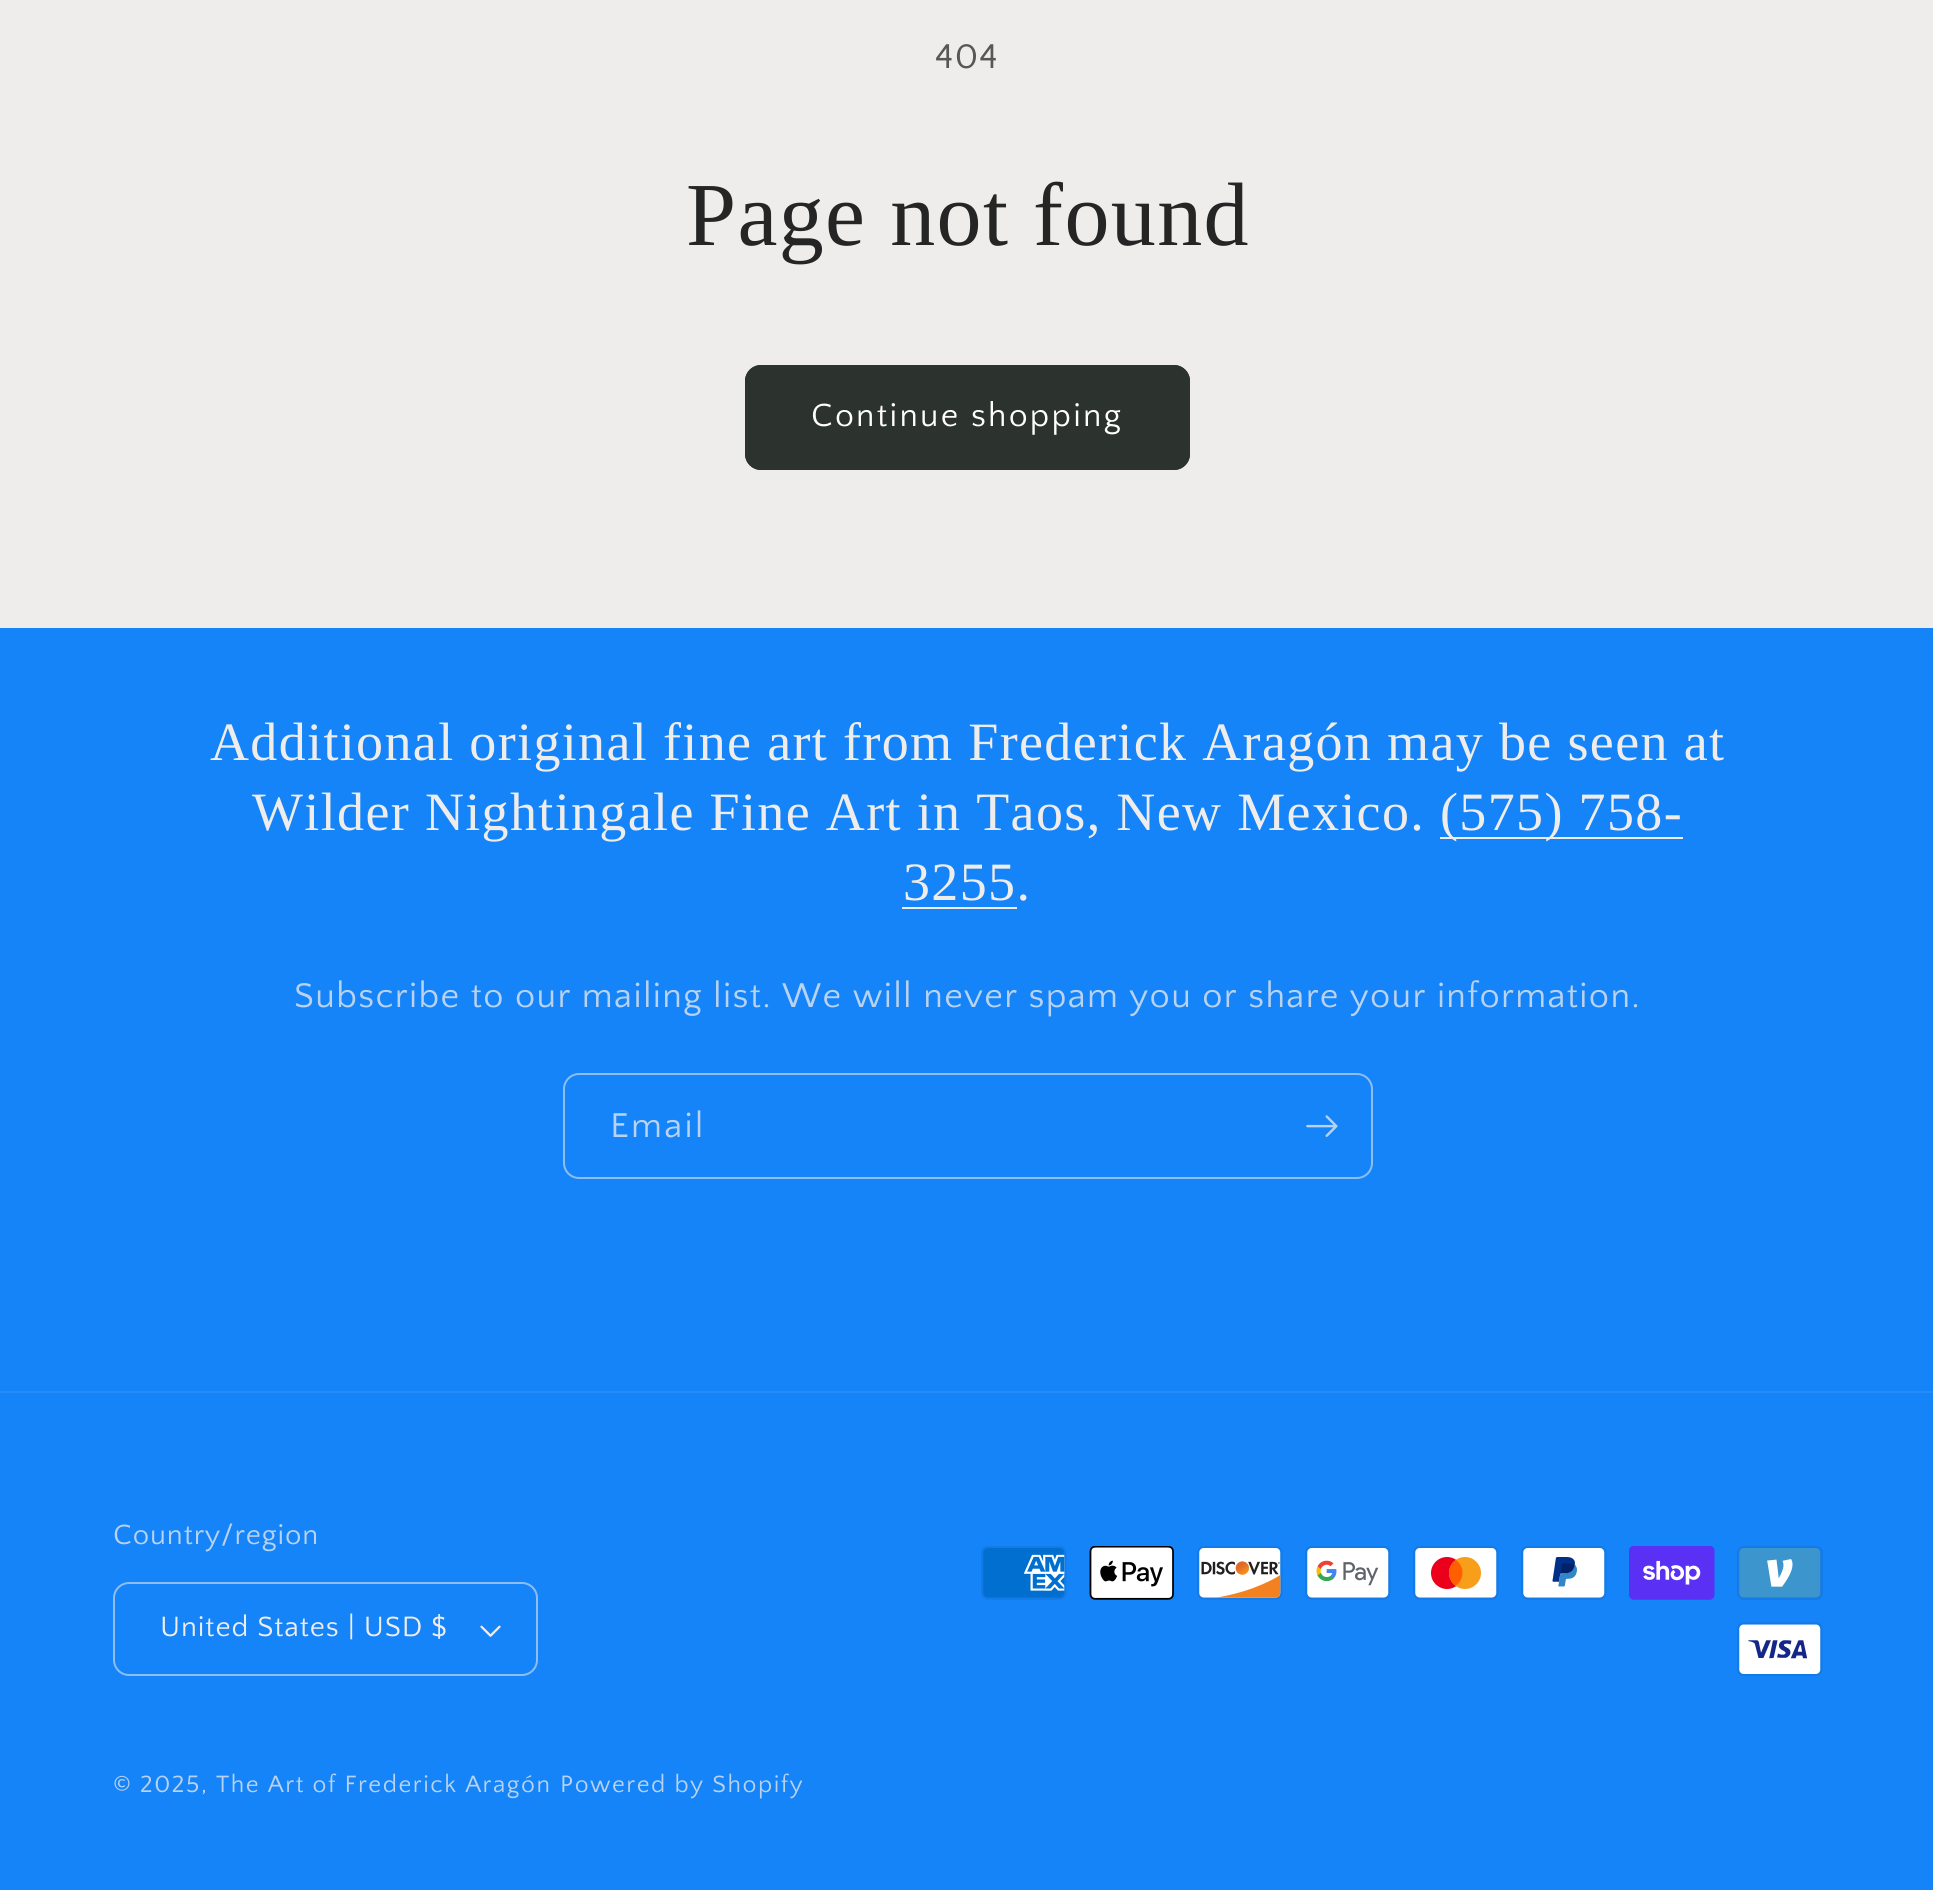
import math
import cairo



def draw_spaced(context, x, y, s, letter, word):
    context.move_to(x, y)
    for ch in s:
        context.show_text(ch)
        context.rel_move_to(letter + word * (ch == ' '), 0)


def rounded_rect(context, x, y, w, h, r):
    context.new_sub_path()
    for i, (u, v) in enumerate([(x + w - r, y + h - r), (x + r, y + h - r), (x + r, y + r), (x + w - r, y + r)]):
        context.arc(u, v, r, i * math.pi / 2, (i + 1) * math.pi / 2)
    context.close_path()


def draw_image(context, path, x, y, w, h):
    context.save()
    context.set_source_surface(cairo.ImageSurface.create_from_png(path), x, y)
    context.rectangle(x, y, w, h)
    context.fill()
    context.restore()


def draw(context):
    context.set_source_rgb(239 / 255, 236 / 255, 236 / 255)
    context.paint()
    context.set_source_rgb(44 / 255, 51 / 255, 47 / 255)
    rounded_rect(context, 745, 365, 445, 105, 16)
    context.fill()
    rounded_rect(context, 746, 366, 443, 103, 15)
    context.stroke()
    context.set_source_rgb(21 / 255, 132 / 255, 248 / 255)
    context.rectangle(0, 628, 1933, 1262)
    context.fill()
    context.set_source_rgb(239 / 255, 236 / 255, 236 / 255)
    context.rectangle(1440, 837, 243, 2)
    context.fill()
    context.rectangle(902, 907, 115, 2)
    context.fill()
    rounded_rect(context, 564, 1074, 808, 104, 15)
    context.set_source_rgb(141 / 255, 189 / 255, 241 / 255)
    context.stroke()
    draw_image(context, "images/1.png", 1306, 1115, 32, 22)
    context.set_source_rgb(38 / 255, 140 / 255, 247 / 255)
    context.rectangle(0, 1391, 1933, 2)
    context.fill()
    draw_image(context, "images/2.png", 480, 1625, 21, 12)
    rounded_rect(context, 114, 1583, 423, 92, 15)
    context.set_source_rgb(141 / 255, 189 / 255, 241 / 255)
    context.stroke()
    draw_image(context, "images/3.png", 981, 1546, 86, 54)
    draw_image(context, "images/4.png", 1089, 1546, 85, 54)
    draw_image(context, "images/5.png", 1197, 1546, 86, 54)
    draw_image(context, "images/6.png", 1305, 1546, 86, 54)
    draw_image(context, "images/7.png", 1413, 1546, 86, 54)
    draw_image(context, "images/8.png", 1521, 1546, 86, 54)
    draw_image(context, "images/9.png", 1629, 1546, 86, 54)
    draw_image(context, "images/10.png", 1737, 1546, 86, 54)
    draw_image(context, "images/11.png", 1737, 1622, 86, 54)
    context.select_font_face("Quattrocento Sans")
    context.set_font_size(36)
    context.set_source_rgb(88 / 255, 87 / 255, 87 / 255)
    draw_spaced(context, 935, 68, "404", 1.35, 0)
    context.select_font_face("Liberation Serif")
    context.set_font_size(90)
    context.set_source_rgb(37 / 255, 37 / 255, 37 / 255)
    draw_spaced(context, 686, 245, "Page not found", 1.35, 0)
    context.select_font_face("Quattrocento Sans")
    context.set_font_size(33.75)
    context.set_source_rgb(1, 1, 1)
    draw_spaced(context, 811, 426, "Continue shopping", 2.25, 0)
    context.select_font_face("Liberation Serif")
    context.set_font_size(54)
    context.set_source_rgb(239 / 255, 236 / 255, 236 / 255)
    draw_spaced(context, 210, 760, "Additional original fine art from Frederick Aragón may be seen at", 1.35, 0)
    draw_spaced(context, 252, 830, "Wilder Nightingale Fine Art in Taos, New Mexico.", 1.35, 0)
    draw_spaced(context, 1440, 830, "(575) 758-", 1.35, 0)
    draw_spaced(context, 903, 900, "3255.", 1.35, 0)
    context.select_font_face("Quattrocento Sans")
    context.set_font_size(36)
    context.set_source_rgb(185 / 255, 210 / 255, 239 / 255)
    draw_spaced(context, 294, 1007, "Subscribe to our mailing list. We will never spam you or share your information.", 1.35, 0)
    draw_spaced(context, 610, 1137, "Email", 2.25, 0)
    context.set_font_size(29.25)
    draw_spaced(context, 113, 1544, "Country/region", 0.9, 0)
    context.set_source_rgb(239 / 255, 236 / 255, 236 / 255)
    draw_spaced(context, 160, 1636, "United States | USD $", 0.9, 0)
    context.set_font_size(24.75)
    context.set_source_rgb(185 / 255, 210 / 255, 239 / 255)
    draw_spaced(context, 113, 1792, "© 2025, The Art of Frederick Aragón", 1.55, 0)
    draw_spaced(context, 560, 1792, "Powered by Shopify", 1.55, 0)


surface = cairo.ImageSurface(cairo.Format.RGB24, 1933, 1890)
context = cairo.Context(surface)
options = cairo.FontOptions()
options.set_hint_metrics(cairo.HintMetrics.OFF)
options.set_hint_style(cairo.HintStyle.NONE)
context.set_font_options(options)
context.set_miter_limit(4)
draw(context)
surface.write_to_png("out.png")
